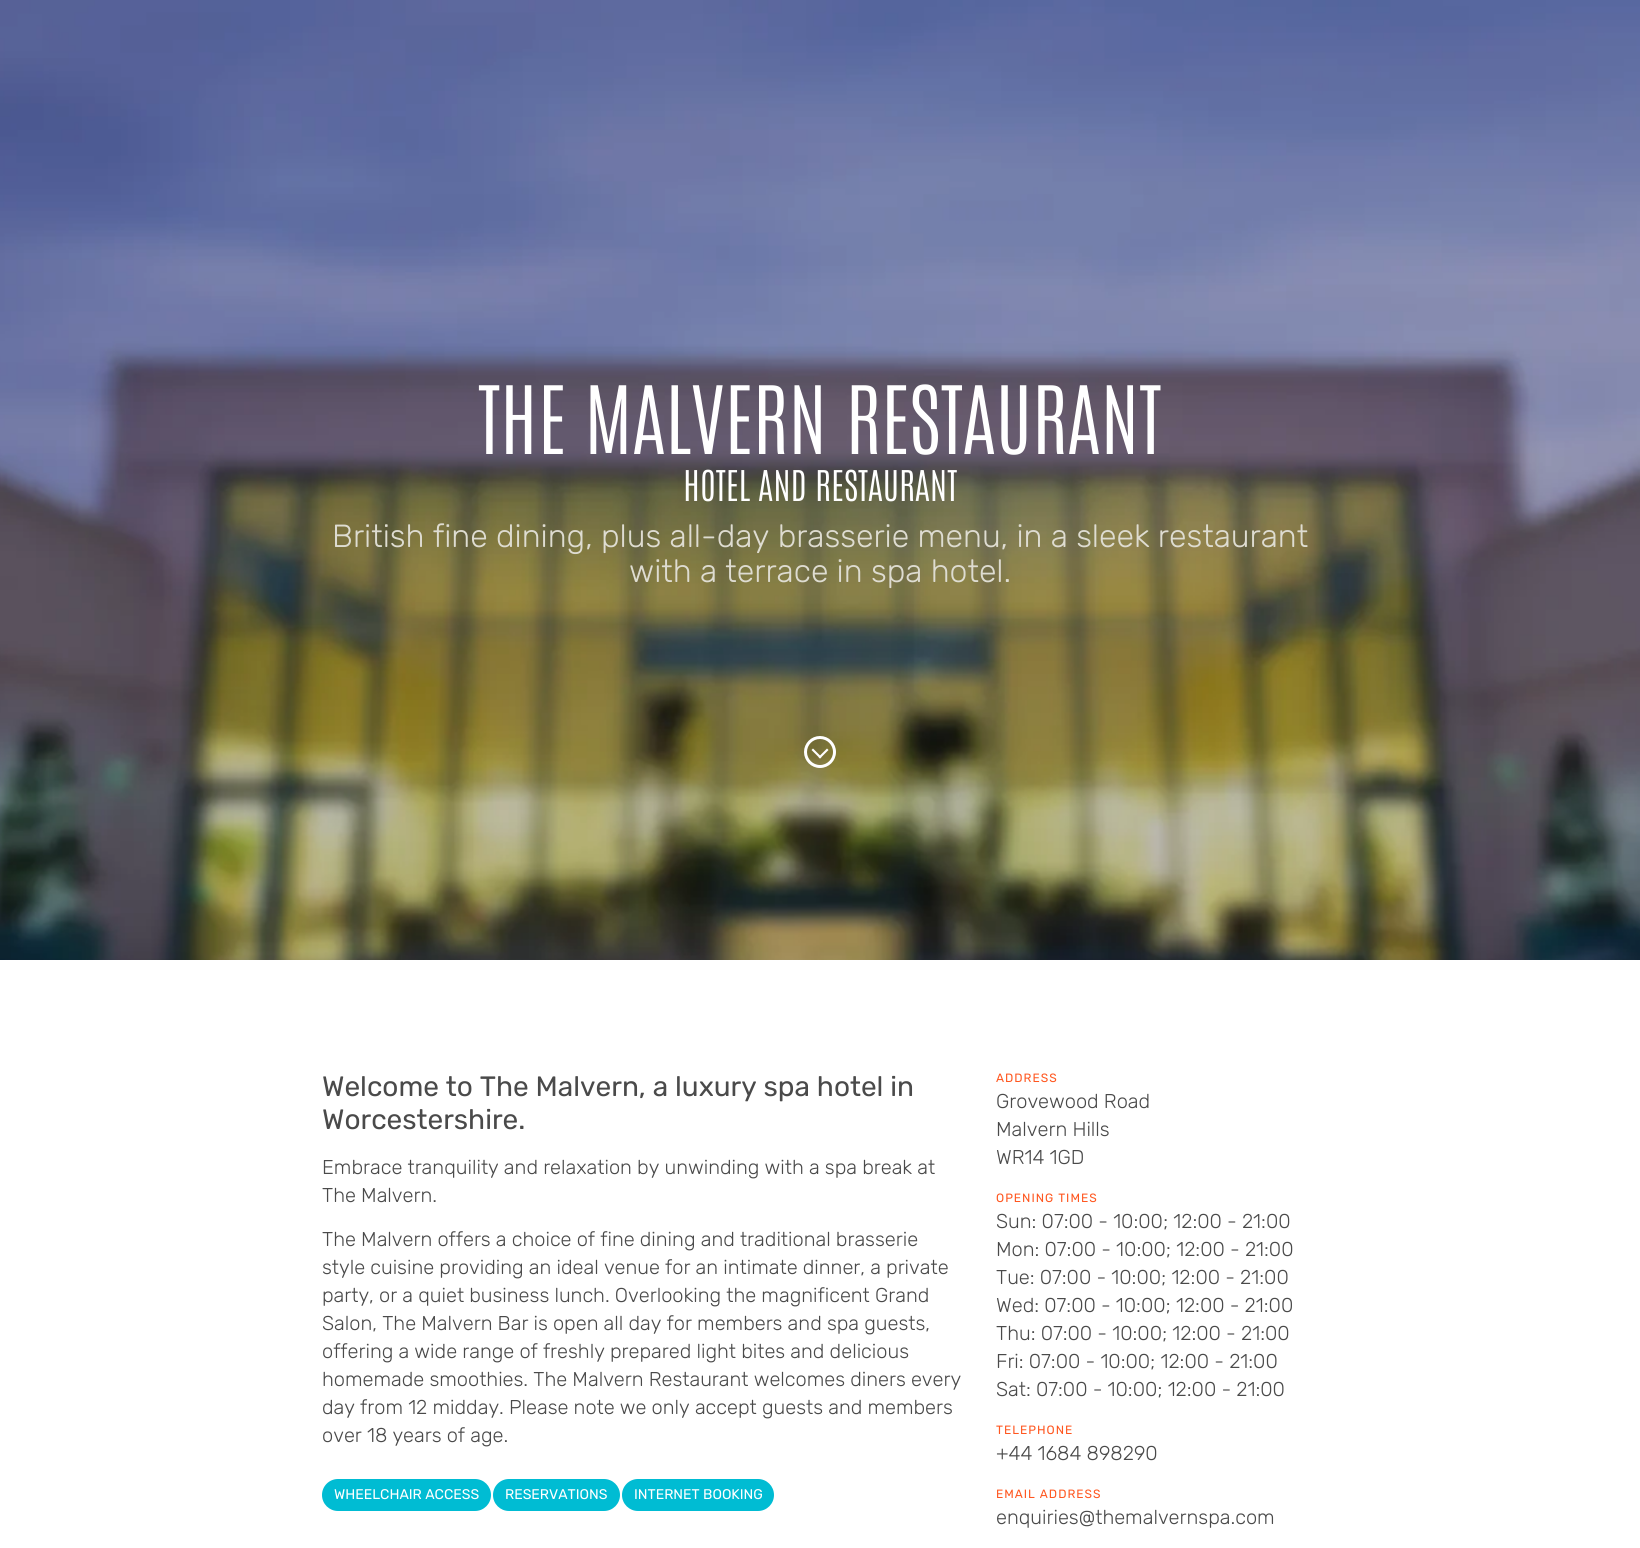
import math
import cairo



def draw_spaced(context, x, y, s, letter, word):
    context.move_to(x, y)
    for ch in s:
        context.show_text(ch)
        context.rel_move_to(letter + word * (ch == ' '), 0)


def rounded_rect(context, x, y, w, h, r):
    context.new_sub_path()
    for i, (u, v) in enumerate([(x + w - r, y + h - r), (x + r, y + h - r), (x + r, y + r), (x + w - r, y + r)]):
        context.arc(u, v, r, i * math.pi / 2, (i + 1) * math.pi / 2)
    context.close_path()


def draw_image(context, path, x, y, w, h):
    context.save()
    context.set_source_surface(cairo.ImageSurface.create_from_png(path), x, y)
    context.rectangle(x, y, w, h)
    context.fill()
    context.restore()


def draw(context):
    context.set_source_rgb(1, 1, 1)
    context.paint()
    draw_image(context, "images/1.png", 0, 0, 1640, 960)
    context.arc(820, 752, 14.5, 0, 2 * math.pi)
    context.set_source_rgb(1, 1, 1)
    context.set_line_width(3)
    context.stroke()
    context.new_path()
    context.move_to(818.5, 757)
    context.line_to(827, 748.5)
    context.line_to(828.5, 750)
    context.line_to(820, 758.5)
    context.close_path()
    context.fill()
    context.new_path()
    context.move_to(811.5, 750)
    context.line_to(813, 748.5)
    context.line_to(821.5, 757)
    context.line_to(820, 758.5)
    context.close_path()
    context.fill()
    context.set_source_rgb(0, 188 / 255, 211 / 255)
    rounded_rect(context, 322, 1479, 169, 32, 16)
    context.fill()
    rounded_rect(context, 493, 1479, 127, 32, 16)
    context.fill()
    rounded_rect(context, 622, 1479, 152, 32, 16)
    context.fill()
    context.select_font_face("Antonio ExtraLight")
    context.set_font_size(80)
    context.set_source_rgb(1, 1, 1)
    context.move_to(478, 454)
    context.show_text("THE MALVERN RESTAURANT")
    context.set_font_size(36)
    context.move_to(683, 501)
    context.show_text("HOTEL AND RESTAURANT")
    context.select_font_face("Rubik Light")
    context.set_font_size(32)
    context.set_source_rgb(222 / 255, 220 / 255, 209 / 255)
    context.move_to(332, 547)
    context.show_text("British fine dining, plus all-day brasserie menu, in a sleek restaurant")
    context.move_to(629, 582)
    context.show_text("with a terrace in spa hotel.")
    context.select_font_face("Rubik")
    context.set_font_size(28)
    context.set_source_rgb(74 / 255, 74 / 255, 74 / 255)
    context.move_to(322, 1096)
    context.show_text("Welcome to The Malvern, a luxury spa hotel in")
    context.move_to(322, 1129)
    context.show_text("Worcestershire.")
    context.select_font_face("Rubik Light")
    context.set_font_size(20)
    context.move_to(322, 1174)
    context.show_text("Embrace tranquility and relaxation by unwinding with a spa break at")
    context.move_to(322, 1202)
    context.show_text("The Malvern.")
    context.move_to(322, 1246)
    context.show_text("The Malvern offers a choice of fine dining and traditional brasserie")
    context.move_to(322, 1274)
    context.show_text("style cuisine providing an ideal venue for an intimate dinner, a private")
    context.move_to(322, 1302)
    context.show_text("party, or a quiet business lunch. Overlooking the magnificent Grand")
    context.move_to(322, 1330)
    context.show_text("Salon, The Malvern Bar is open all day for members and spa guests,")
    context.move_to(322, 1358)
    context.show_text("offering a wide range of freshly prepared light bites and delicious")
    context.move_to(322, 1386)
    context.show_text("homemade smoothies. The Malvern Restaurant welcomes diners every")
    context.move_to(322, 1414)
    context.show_text("day from 12 midday. Please note we only accept guests and members")
    context.move_to(322, 1442)
    context.show_text("over 18 years of age.")
    context.select_font_face("Rubik")
    context.set_font_size(14)
    context.set_source_rgb(1, 1, 1)
    context.move_to(334, 1499)
    context.show_text("WHEELCHAIR ACCESS")
    context.move_to(505, 1499)
    context.show_text("RESERVATIONS")
    context.move_to(634, 1499)
    context.show_text("INTERNET BOOKING")
    context.set_font_size(12)
    context.set_source_rgb(1, 87 / 255, 32 / 255)
    draw_spaced(context, 996, 1082, "ADDRESS", 1, 0)
    context.select_font_face("Rubik Light")
    context.set_font_size(20)
    context.set_source_rgb(74 / 255, 74 / 255, 74 / 255)
    context.move_to(996, 1108)
    context.show_text("Grovewood Road")
    context.move_to(996, 1136)
    context.show_text("Malvern Hills")
    context.move_to(996, 1164)
    context.show_text("WR14 1GD")
    context.select_font_face("Rubik")
    context.set_font_size(12)
    context.set_source_rgb(1, 87 / 255, 32 / 255)
    draw_spaced(context, 996, 1202, "OPENING TIMES", 1, 0)
    context.select_font_face("Rubik Light")
    context.set_font_size(20)
    context.set_source_rgb(74 / 255, 74 / 255, 74 / 255)
    context.move_to(996, 1228)
    context.show_text("Sun: 07:00 - 10:00; 12:00 - 21:00")
    context.move_to(996, 1256)
    context.show_text("Mon: 07:00 - 10:00; 12:00 - 21:00")
    context.move_to(996, 1284)
    context.show_text("Tue: 07:00 - 10:00; 12:00 - 21:00")
    context.move_to(996, 1312)
    context.show_text("Wed: 07:00 - 10:00; 12:00 - 21:00")
    context.move_to(996, 1340)
    context.show_text("Thu: 07:00 - 10:00; 12:00 - 21:00")
    context.move_to(996, 1368)
    context.show_text("Fri: 07:00 - 10:00; 12:00 - 21:00")
    context.move_to(996, 1396)
    context.show_text("Sat: 07:00 - 10:00; 12:00 - 21:00")
    context.select_font_face("Rubik")
    context.set_font_size(12)
    context.set_source_rgb(1, 87 / 255, 32 / 255)
    draw_spaced(context, 996, 1434, "TELEPHONE", 1, 0)
    context.select_font_face("Rubik Light")
    context.set_font_size(20)
    context.set_source_rgb(74 / 255, 74 / 255, 74 / 255)
    context.move_to(996, 1460)
    context.show_text("+44 1684 898290")
    context.select_font_face("Rubik")
    context.set_font_size(12)
    context.set_source_rgb(1, 87 / 255, 32 / 255)
    draw_spaced(context, 996, 1498, "EMAIL ADDRESS", 1, 0)
    context.select_font_face("Rubik Light")
    context.set_font_size(20)
    context.set_source_rgb(74 / 255, 74 / 255, 74 / 255)
    context.move_to(996, 1524)
    context.show_text("enquiries@themalvernspa.com")


surface = cairo.ImageSurface(cairo.Format.RGB24, 1640, 1548)
context = cairo.Context(surface)
options = cairo.FontOptions()
options.set_hint_metrics(cairo.HintMetrics.OFF)
options.set_hint_style(cairo.HintStyle.NONE)
context.set_font_options(options)
context.set_miter_limit(4)
draw(context)
surface.write_to_png("out.png")
